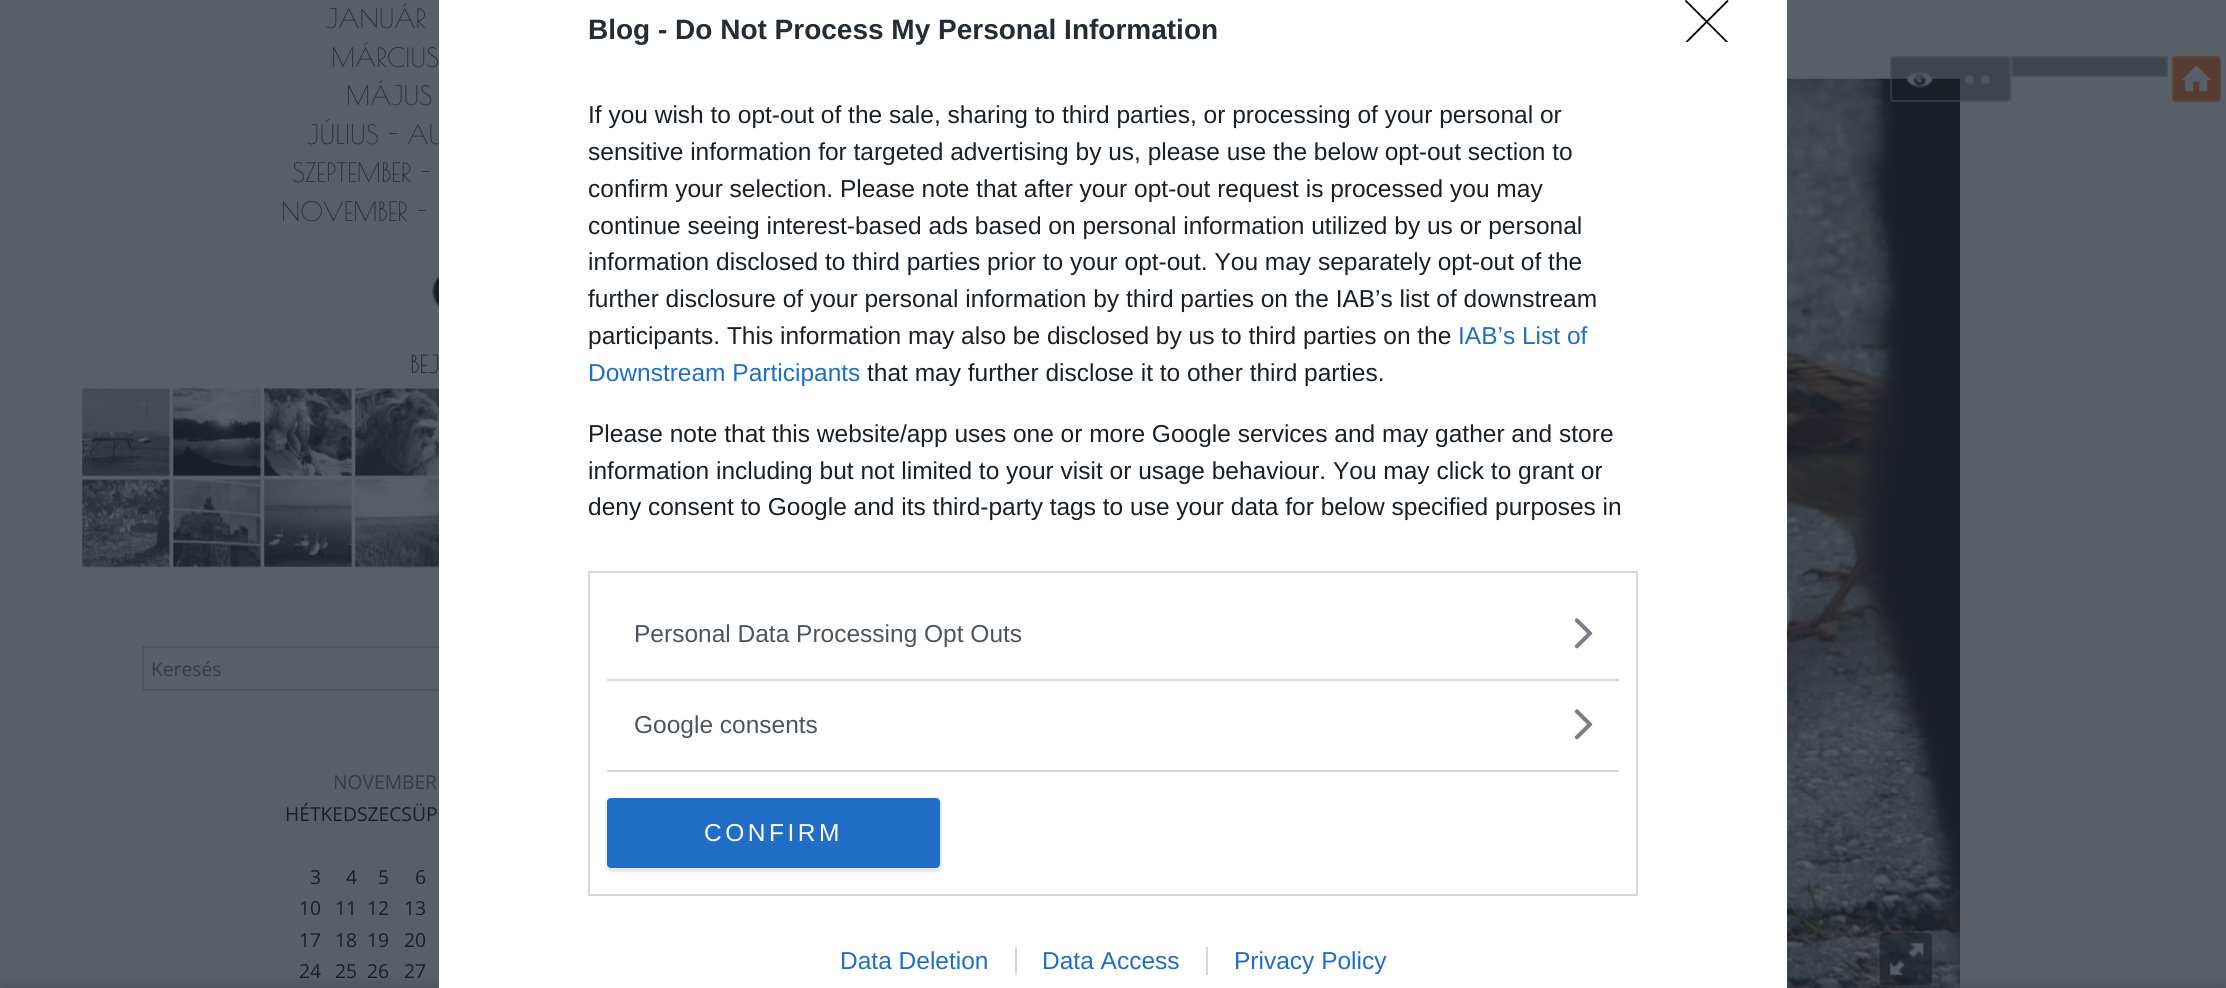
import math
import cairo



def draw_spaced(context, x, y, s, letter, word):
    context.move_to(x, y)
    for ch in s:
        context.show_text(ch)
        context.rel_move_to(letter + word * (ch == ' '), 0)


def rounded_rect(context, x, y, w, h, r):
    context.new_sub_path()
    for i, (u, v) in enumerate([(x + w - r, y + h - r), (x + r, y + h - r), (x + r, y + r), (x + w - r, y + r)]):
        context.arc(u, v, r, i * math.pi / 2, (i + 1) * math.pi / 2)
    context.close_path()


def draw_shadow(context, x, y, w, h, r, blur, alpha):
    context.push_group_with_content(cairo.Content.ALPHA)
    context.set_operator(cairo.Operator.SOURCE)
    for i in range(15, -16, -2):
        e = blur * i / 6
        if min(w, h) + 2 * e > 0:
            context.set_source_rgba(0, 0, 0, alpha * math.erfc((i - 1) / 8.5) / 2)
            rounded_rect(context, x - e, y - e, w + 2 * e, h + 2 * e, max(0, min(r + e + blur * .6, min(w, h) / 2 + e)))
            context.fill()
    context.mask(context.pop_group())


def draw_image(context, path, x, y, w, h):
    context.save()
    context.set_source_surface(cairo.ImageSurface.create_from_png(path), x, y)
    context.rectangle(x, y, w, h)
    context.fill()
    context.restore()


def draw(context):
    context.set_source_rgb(89 / 255, 95 / 255, 103 / 255)
    context.paint()
    draw_image(context, "images/1.png", 432, 276, 7, 31)
    draw_image(context, "images/2.png", 82, 388, 89, 89)
    draw_image(context, "images/3.png", 173, 388, 89, 89)
    draw_image(context, "images/4.png", 264, 388, 88, 88)
    draw_image(context, "images/5.png", 355, 388, 84, 89)
    draw_image(context, "images/6.png", 82, 479, 89, 89)
    draw_image(context, "images/7.png", 173, 479, 89, 89)
    draw_image(context, "images/8.png", 264, 479, 88, 88)
    draw_image(context, "images/9.png", 355, 479, 84, 89)
    context.rectangle(143, 647, 348, 43)
    context.set_source_rgb(79 / 255, 85 / 255, 93 / 255)
    context.stroke()
    draw_image(context, "images/10.png", 1787, 78, 173, 910)
    draw_image(context, "images/11.png", 1877, 931, 57, 56)
    context.set_source_rgba(25 / 255, 31 / 255, 39 / 255, 0.4)
    rounded_rect(context, 1890, 56, 121, 46, 4)
    context.fill()
    rounded_rect(context, 1891, 57, 119, 44, 3)
    context.set_source_rgba(89 / 255, 95 / 255, 103 / 255, 0.4)
    context.stroke()
    draw_image(context, "images/13.png", 1905, 71, 29, 17)
    draw_image(context, "images/14.png", 1964, 75, 27, 10)
    context.set_source_rgb(63 / 255, 69 / 255, 77 / 255)
    context.rectangle(2012, 57, 155, 19)
    context.fill_preserve()
    context.set_source_rgb(73 / 255, 79 / 255, 88 / 255)
    context.stroke()
    context.set_source_rgb(86 / 255, 60 / 255, 49 / 255)
    rounded_rect(context, 2172, 56, 49, 46, 4)
    context.fill()
    rounded_rect(context, 2173, 57, 47, 44, 3)
    context.set_source_rgba(89 / 255, 95 / 255, 103 / 255, 0.3)
    context.stroke()
    draw_image(context, "images/15.png", 2182, 66, 29, 26)
    context.set_source_rgb(44 / 255, 50 / 255, 58 / 255)
    draw_shadow(context, 4, 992, 2219, 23, 0, 9, 0.8)
    context.select_font_face("Poiret One")
    context.set_font_size(26.25)
    context.set_source_rgb(38 / 255, 44 / 255, 52 / 255)
    context.move_to(326, 28)
    context.show_text("JANUÁR")
    context.move_to(331, 67)
    context.show_text("MÁRCIUS")
    context.move_to(346, 105)
    context.show_text("MÁJUS")
    context.move_to(307, 144)
    context.show_text("JÚLIUS - AU")
    context.move_to(292, 182)
    context.show_text("SZEPTEMBER -")
    context.move_to(281, 221)
    context.show_text("NOVEMBER -")
    context.set_font_size(24.5)
    context.set_source_rgb(25 / 255, 31 / 255, 39 / 255)
    context.move_to(410, 373)
    context.show_text("BEJ")
    context.select_font_face("Open Sans")
    context.set_font_size(19.25)
    context.set_source_rgb(54 / 255, 60 / 255, 68 / 255)
    context.move_to(151, 676)
    context.show_text("Keresés")
    context.move_to(333, 789)
    context.show_text("NOVEMBER")
    context.set_source_rgb(25 / 255, 31 / 255, 39 / 255)
    context.move_to(285, 821)
    context.show_text("HÉTKEDSZECSÜP")
    context.move_to(310, 884)
    context.show_text("3")
    context.move_to(346, 884)
    context.show_text("4")
    context.move_to(378, 884)
    context.show_text("5")
    context.move_to(415, 884)
    context.show_text("6")
    context.move_to(299, 915)
    context.show_text("10")
    context.move_to(335, 915)
    context.show_text("11")
    context.move_to(367, 915)
    context.show_text("12")
    context.move_to(404, 915)
    context.show_text("13")
    context.move_to(299, 947)
    context.show_text("17")
    context.move_to(335, 947)
    context.show_text("18")
    context.move_to(367, 947)
    context.show_text("19")
    context.move_to(404, 947)
    context.show_text("20")
    context.move_to(299, 978)
    context.show_text("24")
    context.move_to(335, 978)
    context.show_text("25")
    context.move_to(367, 978)
    context.show_text("26")
    context.move_to(404, 978)
    context.show_text("27")
    context.set_source_rgb(1, 1, 1)
    context.rectangle(439, 0, 1348, 988)
    context.fill()
    context.select_font_face("Liberation Sans", cairo.FontSlant.NORMAL, cairo.FontWeight.BOLD)
    context.set_font_size(28)
    context.set_source_rgb(38 / 255, 44 / 255, 52 / 255)
    context.move_to(588, 39)
    context.show_text("Blog - Do Not Process My Personal Information")
    context.select_font_face("Liberation Sans")
    context.set_font_size(24.5)
    context.set_source_rgb(25 / 255, 31 / 255, 39 / 255)
    context.move_to(588, 123)
    context.show_text("If you wish to opt-out of the sale, sharing to third parties, or processing of your personal or")
    context.move_to(588, 160)
    context.show_text("sensitive information for targeted advertising by us, please use the below opt-out section to")
    context.move_to(588, 197)
    context.show_text("confirm your selection. Please note that after your opt-out request is processed you may")
    context.move_to(588, 234)
    context.show_text("continue seeing interest-based ads based on personal information utilized by us or personal")
    context.move_to(588, 270)
    context.show_text("information disclosed to third parties prior to your opt-out. You may separately opt-out of the")
    context.move_to(588, 307)
    context.show_text("further disclosure of your personal information by third parties on the IAB’s list of downstream")
    context.move_to(588, 344)
    context.show_text("participants. This information may also be disclosed by us to third parties on the")
    context.set_source_rgb(32 / 255, 109 / 255, 197 / 255)
    context.move_to(1458, 344)
    context.show_text("IAB’s List of")
    context.move_to(588, 381)
    context.show_text("Downstream Participants")
    context.set_source_rgb(25 / 255, 31 / 255, 39 / 255)
    context.move_to(867, 381)
    context.show_text("that may further disclose it to other third parties.")
    context.move_to(588, 442)
    context.show_text("Please note that this website/app uses one or more Google services and may gather and store")
    context.move_to(588, 479)
    context.show_text("information including but not limited to your visit or usage behaviour. You may click to grant or")
    context.move_to(588, 515)
    context.show_text("deny consent to Google and its third-party tags to use your data for below specified purposes in")
    context.rectangle(589, 572, 1048, 323)
    context.set_source_rgb(216 / 255, 216 / 255, 216 / 255)
    context.stroke()
    context.rectangle(607, 679, 1012, 2)
    context.fill()
    context.set_source_rgb(77 / 255, 84 / 255, 93 / 255)
    context.move_to(634, 642)
    context.show_text("Personal Data Processing Opt Outs")
    draw_image(context, "images/12.png", 1574, 618, 19, 31)
    context.set_source_rgb(216 / 255, 216 / 255, 216 / 255)
    context.rectangle(607, 770, 1012, 2)
    context.fill()
    context.set_source_rgb(77 / 255, 84 / 255, 93 / 255)
    context.move_to(634, 733)
    context.show_text("Google consents")
    draw_image(context, "images/12.png", 1574, 709, 19, 31)
    context.set_source_rgb(0, 0, 0)
    draw_shadow(context, 606, 798, 336, 74, 5, 1, 0.1)
    context.set_source_rgb(32 / 255, 109 / 255, 197 / 255)
    rounded_rect(context, 607, 798, 333, 70, 4)
    context.fill()
    context.set_source_rgb(1, 1, 1)
    draw_spaced(context, 704, 841, "CONFIRM", 3.5, 0)
    context.save()
    context.rectangle(1685, 0, 44, 42)
    context.clip()
    context.new_path()
    context.move_to(1686, 1)
    context.line_to(1727.5, 42.5)
    context.move_to(1727.5, 1)
    context.line_to(1686, 42.5)
    context.set_source_rgb(0, 0, 0)
    context.set_line_width(1.8)
    context.set_line_cap(cairo.LineCap.ROUND)
    context.set_line_join(cairo.LineJoin.ROUND)
    context.stroke()
    context.restore()
    context.set_source_rgb(32 / 255, 109 / 255, 197 / 255)
    context.move_to(840, 969)
    context.show_text("Data Deletion")
    context.move_to(1042, 969)
    context.show_text("Data Access")
    context.set_source_rgb(216 / 255, 216 / 255, 216 / 255)
    context.rectangle(1015, 947, 2, 28)
    context.fill()
    context.set_source_rgb(32 / 255, 109 / 255, 197 / 255)
    context.move_to(1234, 969)
    context.show_text("Privacy Policy")
    context.set_source_rgb(216 / 255, 216 / 255, 216 / 255)
    context.rectangle(1206, 947, 2, 28)
    context.fill()


surface = cairo.ImageSurface(cairo.Format.RGB24, 2226, 988)
context = cairo.Context(surface)
options = cairo.FontOptions()
options.set_hint_metrics(cairo.HintMetrics.OFF)
options.set_hint_style(cairo.HintStyle.NONE)
context.set_font_options(options)
context.set_miter_limit(4)
draw(context)
surface.write_to_png("out.png")
